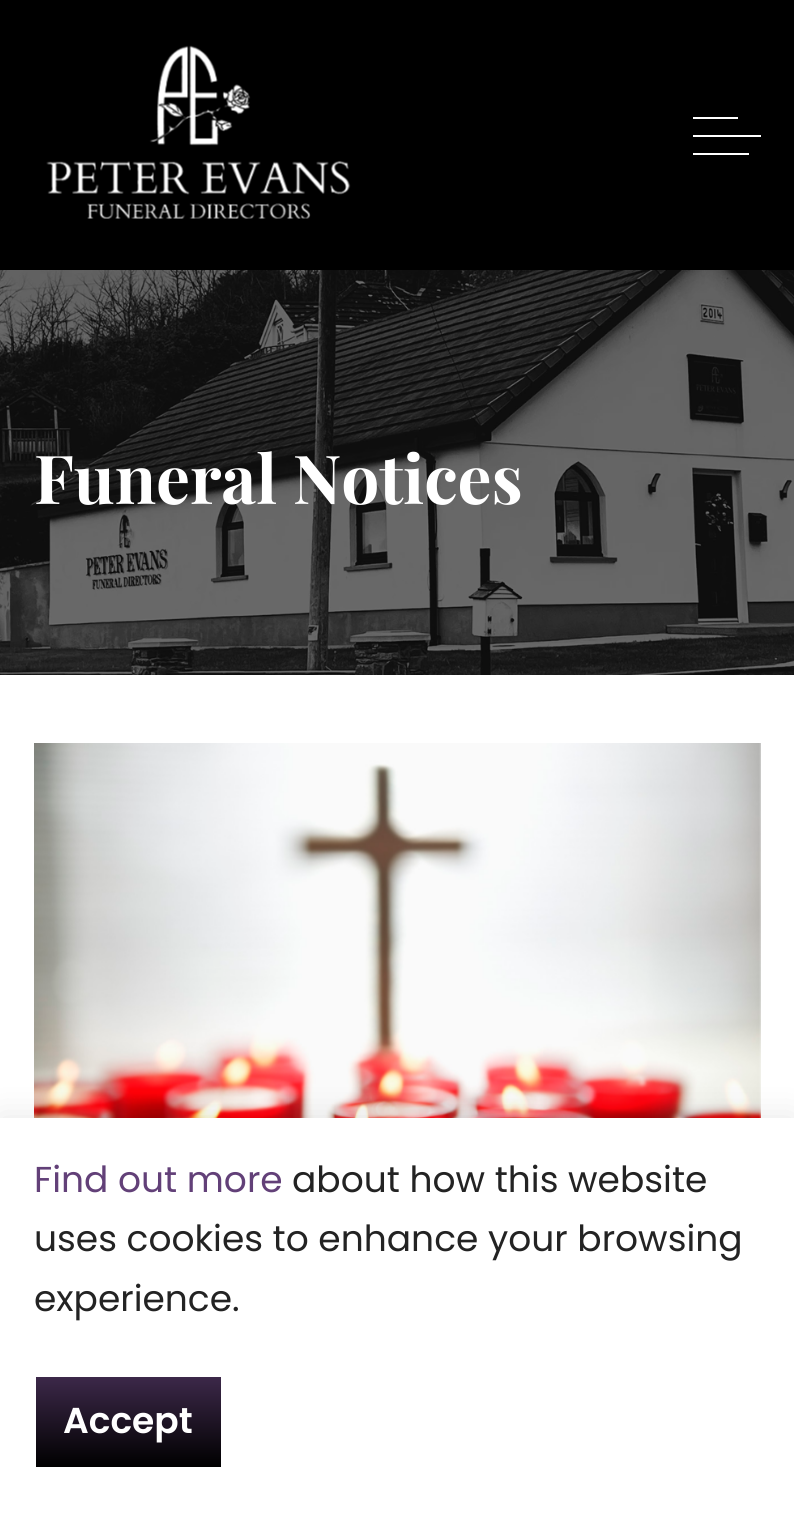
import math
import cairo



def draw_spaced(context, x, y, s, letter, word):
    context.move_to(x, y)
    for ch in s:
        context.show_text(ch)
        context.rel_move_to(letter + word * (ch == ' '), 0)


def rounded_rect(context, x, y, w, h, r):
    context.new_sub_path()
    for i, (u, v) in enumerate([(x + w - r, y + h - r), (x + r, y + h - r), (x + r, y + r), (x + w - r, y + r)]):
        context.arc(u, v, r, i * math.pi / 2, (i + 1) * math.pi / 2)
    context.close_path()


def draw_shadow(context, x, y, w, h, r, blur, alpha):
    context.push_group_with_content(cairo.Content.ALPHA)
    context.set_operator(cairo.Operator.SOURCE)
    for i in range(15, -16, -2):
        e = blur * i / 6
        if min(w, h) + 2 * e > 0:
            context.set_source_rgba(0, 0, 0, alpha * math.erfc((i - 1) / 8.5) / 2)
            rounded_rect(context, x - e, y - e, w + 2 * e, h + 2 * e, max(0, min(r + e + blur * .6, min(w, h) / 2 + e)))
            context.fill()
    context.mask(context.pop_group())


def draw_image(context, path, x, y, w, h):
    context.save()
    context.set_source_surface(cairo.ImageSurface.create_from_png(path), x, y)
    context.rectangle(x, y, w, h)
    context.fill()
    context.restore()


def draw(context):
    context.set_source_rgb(1, 1, 1)
    context.paint()
    context.set_source_rgb(0, 0, 0)
    context.rectangle(0, 0, 794, 270)
    context.fill()
    draw_image(context, "images/1.png", 46, 45, 305, 174)
    context.set_source_rgb(1, 1, 1)
    context.rectangle(693, 135, 68, 2)
    context.fill()
    context.rectangle(693, 117, 45, 2)
    context.fill()
    context.rectangle(693, 153, 56, 2)
    context.fill()
    draw_image(context, "images/2.png", 0, 270, 794, 405)
    draw_image(context, "images/3.png", 34, 743, 727, 375)
    context.set_source_rgb(0, 0, 0)
    draw_shadow(context, 0, 1118, 794, 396, 0, 17, 0.1)
    context.set_source_rgb(1, 1, 1)
    context.rectangle(0, 1118, 794, 395)
    context.fill()
    gradient = cairo.LinearGradient(128, 1377, 128, 1467)
    gradient.add_color_stop_rgba(0, 60 / 255, 40 / 255, 73 / 255, 1)
    gradient.add_color_stop_rgba(1, 0, 0, 0, 1)
    context.set_source(gradient)
    context.rectangle(36, 1377, 185, 90)
    context.fill()
    context.select_font_face("Playfair Display", cairo.FontSlant.NORMAL, cairo.FontWeight.BOLD)
    context.set_font_size(67.5)
    context.set_source_rgb(1, 1, 1)
    draw_spaced(context, 34, 504, "Funeral Notices", -0.1, 0)
    context.select_font_face("Poppins")
    context.set_font_size(36)
    context.set_source_rgb(98 / 255, 64 / 255, 120 / 255)
    context.move_to(34, 1192)
    context.show_text("Find out more")
    context.set_source_rgb(35 / 255, 35 / 255, 35 / 255)
    context.move_to(292, 1192)
    context.show_text("about how this website")
    context.move_to(34, 1251)
    context.show_text("uses cookies to enhance your browsing")
    context.move_to(34, 1311)
    context.show_text("experience.")
    context.select_font_face("Poppins SemiBold")
    context.set_source_rgb(1, 1, 1)
    context.move_to(63, 1433)
    context.show_text("Accept")


surface = cairo.ImageSurface(cairo.Format.RGB24, 794, 1513)
context = cairo.Context(surface)
options = cairo.FontOptions()
options.set_hint_metrics(cairo.HintMetrics.OFF)
options.set_hint_style(cairo.HintStyle.NONE)
context.set_font_options(options)
context.set_miter_limit(4)
draw(context)
surface.write_to_png("out.png")
